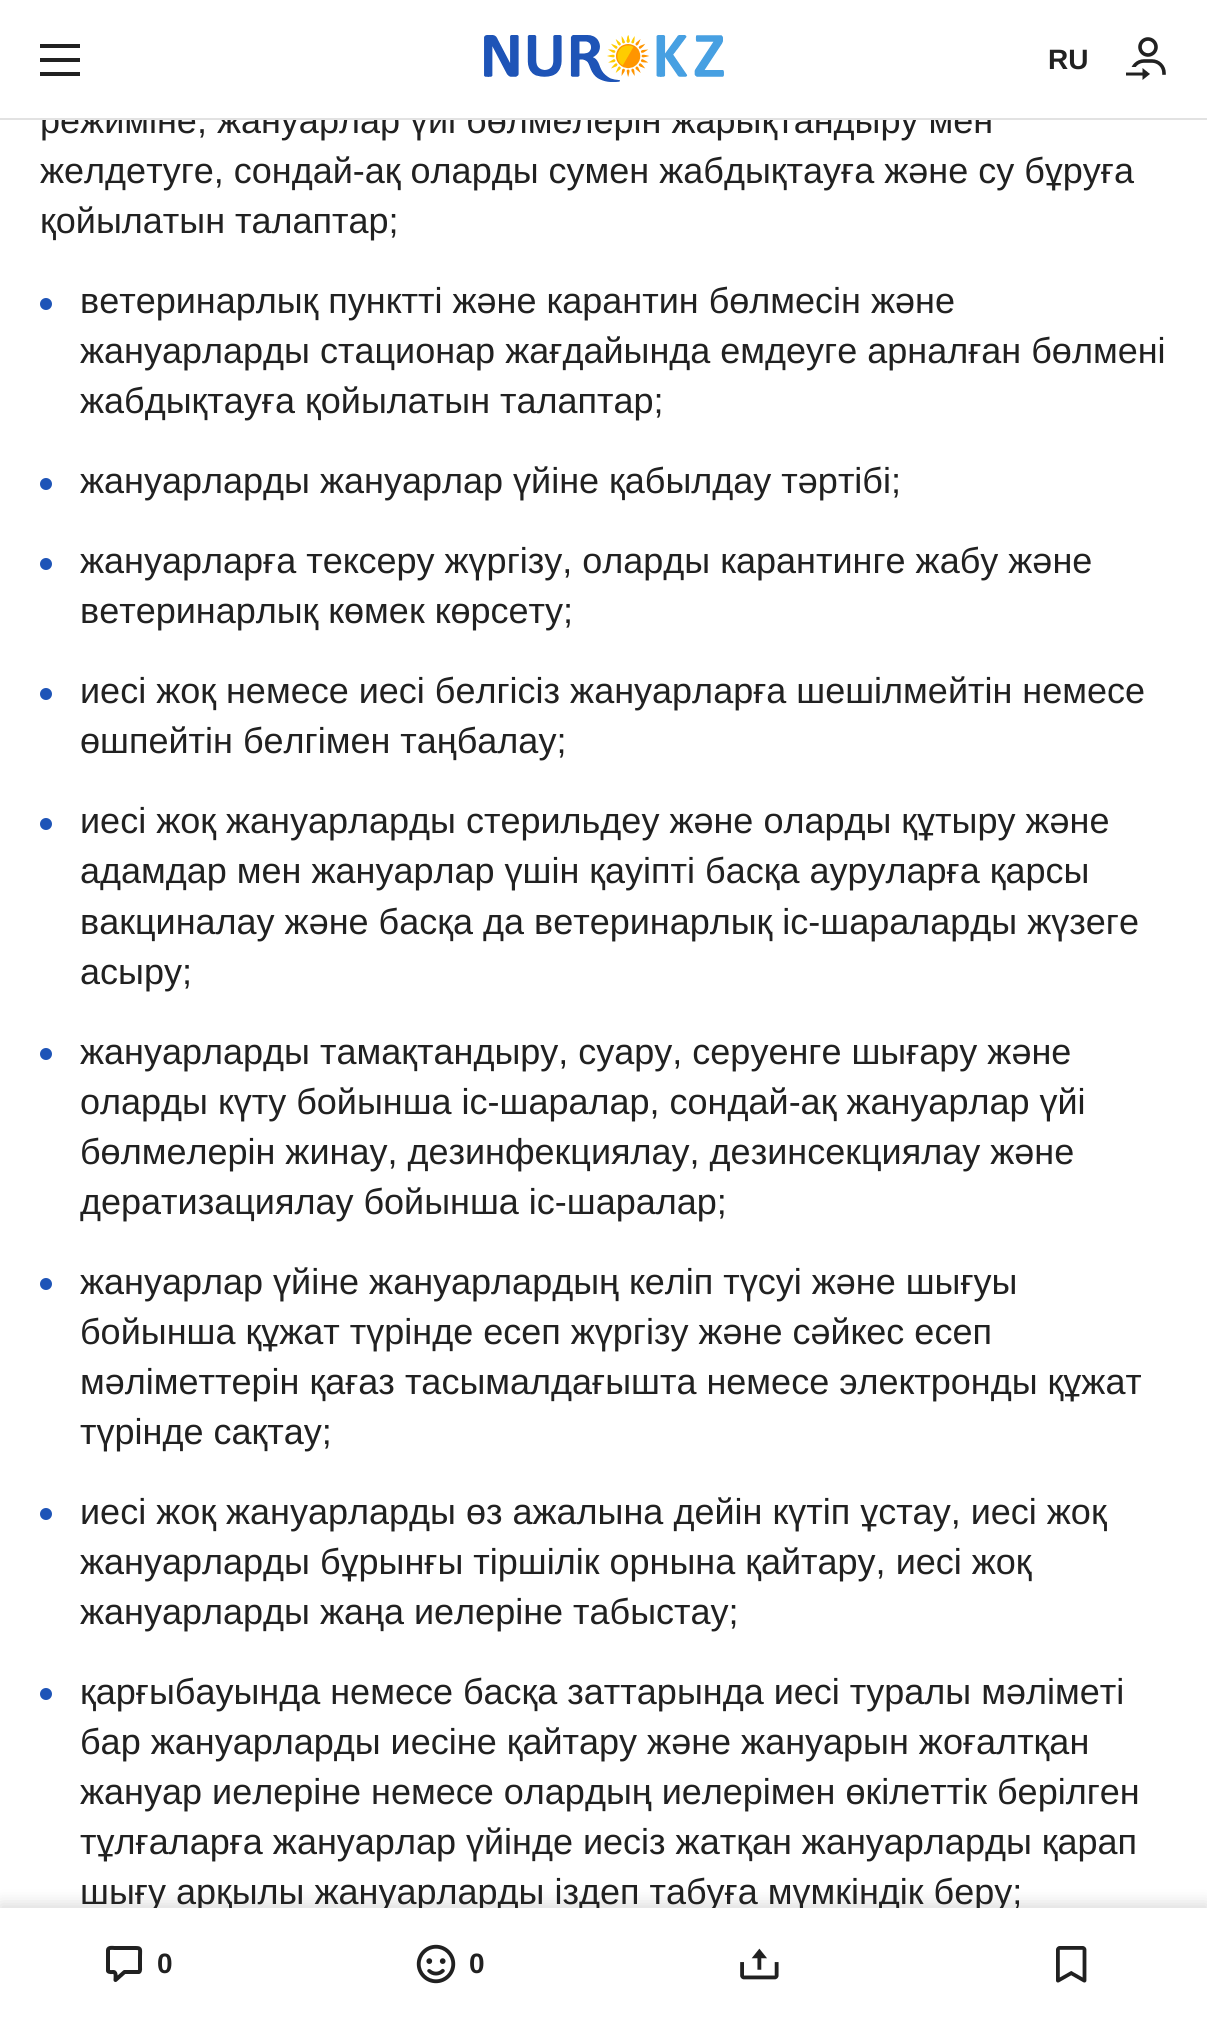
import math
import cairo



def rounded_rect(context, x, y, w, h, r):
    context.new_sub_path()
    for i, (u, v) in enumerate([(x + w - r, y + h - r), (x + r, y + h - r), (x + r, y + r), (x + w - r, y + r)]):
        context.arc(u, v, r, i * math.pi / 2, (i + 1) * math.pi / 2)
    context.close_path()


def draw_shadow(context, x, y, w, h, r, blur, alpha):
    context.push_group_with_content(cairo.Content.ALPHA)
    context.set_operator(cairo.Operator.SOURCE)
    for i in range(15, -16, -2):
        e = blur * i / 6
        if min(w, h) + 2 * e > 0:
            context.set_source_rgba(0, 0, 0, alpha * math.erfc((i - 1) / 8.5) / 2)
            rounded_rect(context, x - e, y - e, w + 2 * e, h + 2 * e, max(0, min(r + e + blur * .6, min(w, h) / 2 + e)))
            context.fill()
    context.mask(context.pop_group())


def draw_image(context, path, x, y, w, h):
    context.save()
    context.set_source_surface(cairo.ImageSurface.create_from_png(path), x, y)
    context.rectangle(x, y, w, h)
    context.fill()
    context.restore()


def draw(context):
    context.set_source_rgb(1, 1, 1)
    context.paint()
    context.set_source_rgb(33 / 255, 33 / 255, 33 / 255)
    context.set_fill_rule(cairo.FillRule.EVEN_ODD)
    context.new_path()
    context.move_to(40, 44)
    context.line_to(80, 44)
    context.line_to(80, 48)
    context.line_to(40, 48)
    context.close_path()
    context.move_to(40, 58)
    context.line_to(80, 58)
    context.line_to(80, 62)
    context.line_to(40, 62)
    context.close_path()
    context.move_to(80, 72)
    context.line_to(40, 72)
    context.line_to(40, 76)
    context.line_to(80, 76)
    context.close_path()
    context.fill()
    draw_image(context, "images/1.png", 484, 35, 240, 47)
    draw_image(context, "images/2.png", 1126, 37, 40, 43)
    context.set_source_rgb(30 / 255, 84 / 255, 183 / 255)
    context.arc(46, 304, 6, 0, 2 * math.pi)
    context.fill()
    context.arc(46, 484, 6, 0, 2 * math.pi)
    context.fill()
    context.arc(46, 564, 6, 0, 2 * math.pi)
    context.fill()
    context.arc(46, 694, 6, 0, 2 * math.pi)
    context.fill()
    context.arc(46, 824, 6, 0, 2 * math.pi)
    context.fill()
    context.arc(46, 1054, 6, 0, 2 * math.pi)
    context.fill()
    context.arc(46, 1284, 6, 0, 2 * math.pi)
    context.fill()
    context.arc(46, 1514, 6, 0, 2 * math.pi)
    context.fill()
    context.arc(46, 1694, 6, 0, 2 * math.pi)
    context.fill()
    context.set_source_rgb(0, 0, 0)
    draw_shadow(context, 0, 1904, 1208, 112, 0, 8, 0.15)
    context.select_font_face("Liberation Sans", cairo.FontSlant.NORMAL, cairo.FontWeight.BOLD)
    context.set_font_size(28)
    context.set_source_rgb(33 / 255, 33 / 255, 33 / 255)
    context.move_to(1048, 69)
    context.show_text("RU")
    context.select_font_face("Liberation Sans")
    context.set_font_size(36)
    context.move_to(40, 133)
    context.show_text("режиміне, жануарлар үйі бөлмелерін жарықтандыру мен")
    context.set_source_rgb(226 / 255, 226 / 255, 226 / 255)
    context.rectangle(0, 118, 1207, 2)
    context.fill()
    context.set_source_rgb(1, 1, 1)
    context.rectangle(42, 106, 949, 12)
    context.fill()
    context.set_source_rgb(33 / 255, 33 / 255, 33 / 255)
    context.move_to(40, 183)
    context.show_text("желдетуге, сондай-ақ оларды сумен жабдықтауға және су бұруға")
    context.move_to(40, 233)
    context.show_text("қойылатын талаптар;")
    context.move_to(80, 313)
    context.show_text("ветеринарлық пунктті және карантин бөлмесін және")
    context.move_to(80, 363)
    context.show_text("жануарларды стационар жағдайында емдеуге арналған бөлмені")
    context.move_to(80, 413)
    context.show_text("жабдықтауға қойылатын талаптар;")
    context.move_to(80, 493)
    context.show_text("жануарларды жануарлар үйіне қабылдау тәртібі;")
    context.move_to(80, 573)
    context.show_text("жануарларға тексеру жүргізу, оларды карантинге жабу және")
    context.move_to(80, 623)
    context.show_text("ветеринарлық көмек көрсету;")
    context.move_to(80, 703)
    context.show_text("иесі жоқ немесе иесі белгісіз жануарларға шешілмейтін немесе")
    context.move_to(80, 753)
    context.show_text("өшпейтін белгімен таңбалау;")
    context.move_to(80, 833)
    context.show_text("иесі жоқ жануарларды стерильдеу және оларды құтыру және")
    context.move_to(80, 883)
    context.show_text("адамдар мен жануарлар үшін қауіпті басқа ауруларға қарсы")
    context.move_to(80, 934)
    context.show_text("вакциналау және басқа да ветеринарлық іс-шараларды жүзеге")
    context.move_to(80, 984)
    context.show_text("асыру;")
    context.move_to(80, 1064)
    context.show_text("жануарларды тамақтандыру, суару, серуенге шығару және")
    context.move_to(80, 1114)
    context.show_text("оларды күту бойынша іс-шаралар, сондай-ақ жануарлар үйі")
    context.move_to(80, 1164)
    context.show_text("бөлмелерін жинау, дезинфекциялау, дезинсекциялау және")
    context.move_to(80, 1214)
    context.show_text("дератизациялау бойынша іс-шаралар;")
    context.move_to(80, 1294)
    context.show_text("жануарлар үйіне жануарлардың келіп түсуі және шығуы")
    context.move_to(80, 1344)
    context.show_text("бойынша құжат түрінде есеп жүргізу және сәйкес есеп")
    context.move_to(80, 1394)
    context.show_text("мәліметтерін қағаз тасымалдағышта немесе электронды құжат")
    context.move_to(80, 1444)
    context.show_text("түрінде сақтау;")
    context.move_to(80, 1524)
    context.show_text("иесі жоқ жануарларды өз ажалына дейін күтіп ұстау, иесі жоқ")
    context.move_to(80, 1574)
    context.show_text("жануарларды бұрынғы тіршілік орнына қайтару, иесі жоқ")
    context.move_to(80, 1624)
    context.show_text("жануарларды жаңа иелеріне табыстау;")
    context.move_to(80, 1704)
    context.show_text("қарғыбауында немесе басқа заттарында иесі туралы мәліметі")
    context.move_to(80, 1754)
    context.show_text("бар жануарларды иесіне қайтару және жануарын жоғалтқан")
    context.move_to(80, 1804)
    context.show_text("жануар иелеріне немесе олардың иелерімен өкілеттік берілген")
    context.move_to(80, 1854)
    context.show_text("тұлғаларға жануарлар үйінде иесіз жатқан жануарларды қарап")
    context.move_to(80, 1904)
    context.show_text("шығу арқылы жануарларды іздеп табуға мүмкіндік беру;")
    context.set_source_rgb(1, 1, 1)
    context.rectangle(0, 1908, 1207, 112)
    context.fill()
    context.new_path()
    context.move_to(108, 1950)
    context.curve_to(108, 1947, 113.5, 1948, 114.5, 1948)
    context.line_to(133.5, 1948)
    context.curve_to(141.5, 1948, 140, 1948, 140, 1956.5)
    context.line_to(140, 1966.5)
    context.curve_to(140, 1968, 140.5, 1971, 139, 1972)
    context.line_to(124.5, 1972)
    context.line_to(115.5, 1980)
    context.curve_to(115.5, 1978, 116.5, 1972, 113.5, 1972)
    context.curve_to(112, 1972, 109, 1972.5, 108, 1971)
    context.close_path()
    context.set_source_rgb(33 / 255, 33 / 255, 33 / 255)
    context.set_line_width(4)
    context.set_line_join(cairo.LineJoin.ROUND)
    context.stroke()
    context.select_font_face("Liberation Sans", cairo.FontSlant.NORMAL, cairo.FontWeight.BOLD)
    context.set_font_size(28)
    context.move_to(157, 1973)
    context.show_text("0")
    draw_image(context, "images/3.png", 416, 1944, 40, 40)
    context.move_to(469, 1973)
    context.show_text("0")
    draw_image(context, "images/4.png", 740, 1948, 39, 32)
    draw_image(context, "images/5.png", 1056, 1946, 31, 37)


surface = cairo.ImageSurface(cairo.Format.RGB24, 1207, 2020)
context = cairo.Context(surface)
options = cairo.FontOptions()
options.set_hint_metrics(cairo.HintMetrics.OFF)
options.set_hint_style(cairo.HintStyle.NONE)
context.set_font_options(options)
context.set_miter_limit(4)
draw(context)
surface.write_to_png("out.png")
